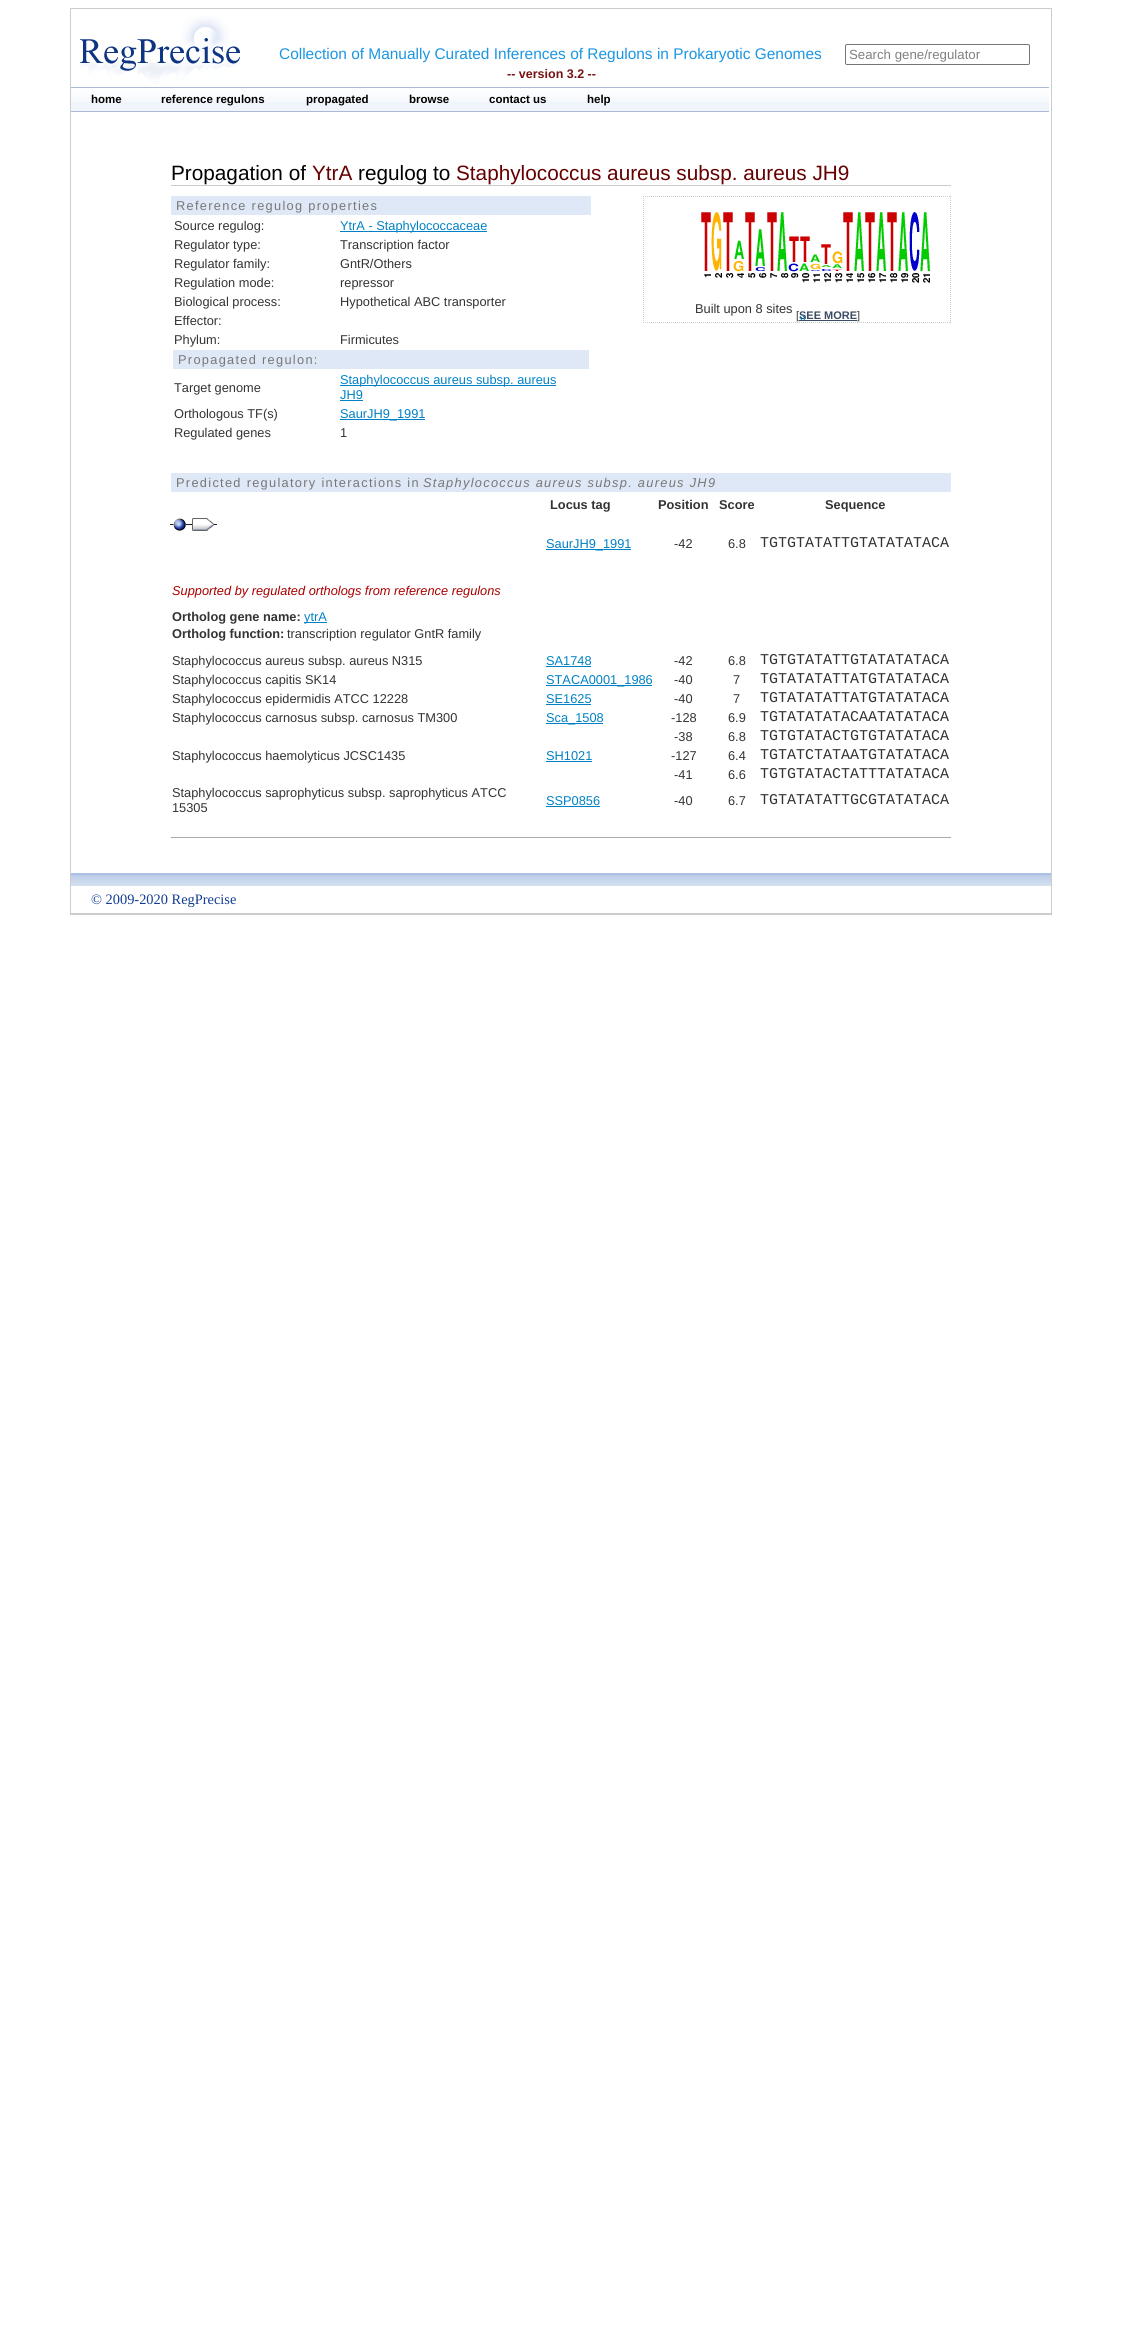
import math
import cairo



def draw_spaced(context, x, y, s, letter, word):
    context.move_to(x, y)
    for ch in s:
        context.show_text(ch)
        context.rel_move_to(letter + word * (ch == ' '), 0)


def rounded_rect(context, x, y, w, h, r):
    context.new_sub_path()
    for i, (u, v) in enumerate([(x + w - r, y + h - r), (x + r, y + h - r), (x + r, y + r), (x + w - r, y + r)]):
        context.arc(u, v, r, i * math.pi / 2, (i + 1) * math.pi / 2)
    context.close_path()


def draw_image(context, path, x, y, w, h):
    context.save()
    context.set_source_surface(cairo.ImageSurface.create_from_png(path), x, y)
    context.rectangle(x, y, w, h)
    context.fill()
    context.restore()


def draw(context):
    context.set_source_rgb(1, 1, 1)
    context.paint()
    context.rectangle(70.5, 8.5, 981, 906)
    context.set_source_rgb(204 / 255, 204 / 255, 204 / 255)
    context.set_line_width(1)
    context.stroke()
    draw_image(context, "images/1.png", 80, 16, 162, 68)
    rounded_rect(context, 845.5, 44.5, 184, 20, 1.5)
    context.set_source_rgb(118 / 255, 118 / 255, 118 / 255)
    context.stroke()
    context.set_source_rgb(240 / 255, 245 / 255, 251 / 255)
    context.rectangle(71, 102, 978, 9)
    context.fill()
    draw_image(context, "images/2.png", 71, 88, 978, 14)
    context.set_source_rgb(171 / 255, 185 / 255, 215 / 255)
    context.rectangle(71, 87, 978, 1)
    context.fill()
    context.rectangle(71, 111, 978, 1)
    context.fill()
    context.set_source_rgb(204 / 255, 204 / 255, 204 / 255)
    context.rectangle(171, 185, 780, 1)
    context.fill()
    context.set_source_rgb(223 / 255, 232 / 255, 246 / 255)
    context.rectangle(171, 196, 420, 19)
    context.fill()
    context.set_source_rgb(0, 129 / 255, 198 / 255)
    context.rectangle(340, 231, 147, 1)
    context.fill()
    context.set_source_rgb(223 / 255, 232 / 255, 246 / 255)
    context.rectangle(173, 350, 416, 19)
    context.fill()
    context.set_source_rgb(0, 129 / 255, 198 / 255)
    context.rectangle(340, 385, 216, 1)
    context.fill()
    context.rectangle(340, 400, 23, 1)
    context.fill()
    context.rectangle(340, 419, 85, 1)
    context.fill()
    context.new_path()
    context.move_to(643, 196.5)
    context.line_to(951, 196.5)
    context.set_source_rgb(204 / 255, 204 / 255, 204 / 255)
    context.set_dash([1, 1])
    context.stroke()
    context.new_path()
    context.move_to(950.5, 196)
    context.line_to(950.5, 323)
    context.stroke()
    context.new_path()
    context.move_to(643, 322.5)
    context.line_to(951, 322.5)
    context.stroke()
    context.new_path()
    context.move_to(643.5, 196)
    context.line_to(643.5, 323)
    context.stroke()
    draw_image(context, "images/3.png", 701, 212, 229, 71)
    context.set_source_rgb(60 / 255, 75 / 255, 100 / 255)
    context.rectangle(799, 320, 58, 1)
    context.fill()
    draw_image(context, "images/4.png", 799, 316, 7, 4)
    context.set_source_rgb(223 / 255, 232 / 255, 246 / 255)
    context.rectangle(171, 473, 780, 19)
    context.fill()
    draw_image(context, "images/5.png", 170, 518, 19, 13)
    draw_image(context, "images/6.png", 189, 518, 28, 13)
    context.set_source_rgb(0, 129 / 255, 198 / 255)
    context.rectangle(546, 549, 85, 1)
    context.fill()
    context.rectangle(304, 622, 23, 1)
    context.fill()
    context.rectangle(546, 666, 45, 1)
    context.fill()
    context.rectangle(546, 685, 106, 1)
    context.fill()
    context.rectangle(546, 704, 45, 1)
    context.fill()
    context.rectangle(546, 723, 57, 1)
    context.fill()
    context.rectangle(546, 761, 46, 1)
    context.fill()
    context.rectangle(546, 806, 54, 1)
    context.fill()
    context.set_source_rgb(170 / 255, 170 / 255, 170 / 255)
    context.rectangle(171, 837, 780, 1)
    context.fill()
    draw_image(context, "images/7.png", 71, 873, 980, 13)
    context.set_source_rgb(204 / 255, 204 / 255, 204 / 255)
    context.rectangle(71, 913, 980, 1)
    context.fill()
    context.select_font_face("Liberation Sans")
    context.set_font_size(15.45)
    context.set_source_rgb(27 / 255, 150 / 255, 226 / 255)
    context.move_to(279, 59)
    context.show_text("Collection of Manually Curated Inferences of Regulons in Prokaryotic Genomes")
    context.select_font_face("Liberation Sans", cairo.FontSlant.NORMAL, cairo.FontWeight.BOLD)
    context.set_font_size(12.5)
    context.set_source_rgb(119 / 255, 17 / 255, 17 / 255)
    context.move_to(507, 78)
    context.show_text("-- version 3.2 --")
    context.select_font_face("Liberation Sans")
    context.set_font_size(13.25)
    context.set_source_rgb(128 / 255, 128 / 255, 128 / 255)
    context.move_to(849, 59)
    context.show_text("Search gene/regulator")
    context.select_font_face("Liberation Sans", cairo.FontSlant.NORMAL, cairo.FontWeight.BOLD)
    context.set_font_size(11.5)
    context.set_source_rgb(0, 0, 0)
    context.move_to(91, 103)
    context.show_text("home")
    context.move_to(161, 103)
    context.show_text("reference regulons")
    context.move_to(306, 103)
    context.show_text("propagated")
    context.move_to(409, 103)
    context.show_text("browse")
    context.move_to(489, 103)
    context.show_text("contact us")
    context.move_to(587, 103)
    context.show_text("help")
    context.select_font_face("Liberation Sans")
    context.set_font_size(20.75)
    context.move_to(171, 180)
    context.show_text("Propagation of")
    context.set_source_rgb(102 / 255, 0, 0)
    context.move_to(312, 180)
    context.show_text("YtrA")
    context.set_source_rgb(0, 0, 0)
    context.move_to(358, 180)
    context.show_text("regulog to")
    context.set_source_rgb(102 / 255, 0, 0)
    context.move_to(456, 180)
    context.show_text("Staphylococcus aureus subsp. aureus JH9")
    context.set_font_size(12.8)
    context.set_source_rgb(119 / 255, 119 / 255, 119 / 255)
    draw_spaced(context, 176, 210, "Reference regulog properties", 1.3, 0)
    context.set_source_rgb(51 / 255, 51 / 255, 51 / 255)
    context.move_to(174, 230)
    context.show_text("Source regulog:")
    context.set_source_rgb(0, 129 / 255, 198 / 255)
    context.move_to(340, 230)
    context.show_text("YtrA - Staphylococcaceae")
    context.set_source_rgb(51 / 255, 51 / 255, 51 / 255)
    context.move_to(174, 249)
    context.show_text("Regulator type:")
    context.move_to(340, 249)
    context.show_text("Transcription factor")
    context.move_to(174, 268)
    context.show_text("Regulator family:")
    context.move_to(340, 268)
    context.show_text("GntR/Others")
    context.move_to(174, 287)
    context.show_text("Regulation mode:")
    context.move_to(340, 287)
    context.show_text("repressor")
    context.move_to(174, 306)
    context.show_text("Biological process:")
    context.move_to(340, 306)
    context.show_text("Hypothetical ABC transporter")
    context.move_to(174, 325)
    context.show_text("Effector:")
    context.move_to(174, 344)
    context.show_text("Phylum:")
    context.move_to(340, 344)
    context.show_text("Firmicutes")
    context.set_source_rgb(119 / 255, 119 / 255, 119 / 255)
    draw_spaced(context, 178, 364, "Propagated regulon:", 1.3, 0)
    context.set_source_rgb(51 / 255, 51 / 255, 51 / 255)
    context.move_to(174, 392)
    context.show_text("Target genome")
    context.set_source_rgb(0, 129 / 255, 198 / 255)
    context.move_to(340, 384)
    context.show_text("Staphylococcus aureus subsp. aureus")
    context.move_to(340, 399)
    context.show_text("JH9")
    context.set_source_rgb(51 / 255, 51 / 255, 51 / 255)
    context.move_to(174, 418)
    context.show_text("Orthologous TF(s)")
    context.set_source_rgb(0, 129 / 255, 198 / 255)
    context.move_to(340, 418)
    context.show_text("SaurJH9_1991")
    context.set_source_rgb(51 / 255, 51 / 255, 51 / 255)
    context.move_to(174, 437)
    context.show_text("Regulated genes")
    context.move_to(340, 437)
    context.show_text("1")
    context.move_to(695, 313)
    context.show_text("Built upon 8 sites")
    context.set_font_size(11)
    context.move_to(796, 319)
    context.show_text("[")
    context.select_font_face("Liberation Sans", cairo.FontSlant.NORMAL, cairo.FontWeight.BOLD)
    context.set_source_rgb(60 / 255, 75 / 255, 100 / 255)
    context.move_to(799, 319)
    context.show_text("SEE MORE")
    context.select_font_face("Liberation Sans")
    context.set_source_rgb(51 / 255, 51 / 255, 51 / 255)
    context.move_to(857, 319)
    context.show_text("]")
    context.set_font_size(12.8)
    context.set_source_rgb(119 / 255, 119 / 255, 119 / 255)
    draw_spaced(context, 176, 487, "Predicted regulatory interactions in", 1.3, 0)
    context.select_font_face("Liberation Sans", cairo.FontSlant.ITALIC)
    draw_spaced(context, 423, 487, "Staphylococcus aureus subsp. aureus JH9", 1.3, 0)
    context.select_font_face("Liberation Sans", cairo.FontSlant.NORMAL, cairo.FontWeight.BOLD)
    context.set_source_rgb(51 / 255, 51 / 255, 51 / 255)
    context.move_to(550, 509)
    context.show_text("Locus tag")
    context.move_to(658, 509)
    context.show_text("Position")
    context.move_to(719, 509)
    context.show_text("Score")
    context.move_to(825, 509)
    context.show_text("Sequence")
    context.select_font_face("Liberation Sans")
    context.set_source_rgb(0, 129 / 255, 198 / 255)
    context.move_to(546, 548)
    context.show_text("SaurJH9_1991")
    context.set_source_rgb(51 / 255, 51 / 255, 51 / 255)
    context.move_to(674, 548)
    context.show_text("-42")
    context.move_to(728, 548)
    context.show_text("6.8")
    context.select_font_face("Liberation Mono")
    context.set_font_size(15)
    context.move_to(760, 547)
    context.show_text("TGTGTATATTGTATATATACA")
    context.select_font_face("Liberation Sans", cairo.FontSlant.ITALIC)
    context.set_font_size(12.8)
    context.set_source_rgb(170 / 255, 0, 0)
    context.move_to(172, 595)
    context.show_text("Supported by regulated orthologs from reference regulons")
    context.select_font_face("Liberation Sans", cairo.FontSlant.NORMAL, cairo.FontWeight.BOLD)
    context.set_source_rgb(51 / 255, 51 / 255, 51 / 255)
    context.move_to(172, 621)
    context.show_text("Ortholog gene name:")
    context.select_font_face("Liberation Sans")
    context.set_source_rgb(0, 129 / 255, 198 / 255)
    context.move_to(304, 621)
    context.show_text("ytrA")
    context.select_font_face("Liberation Sans", cairo.FontSlant.NORMAL, cairo.FontWeight.BOLD)
    context.set_source_rgb(51 / 255, 51 / 255, 51 / 255)
    context.move_to(172, 638)
    context.show_text("Ortholog function:")
    context.select_font_face("Liberation Sans")
    context.move_to(287, 638)
    context.show_text("transcription regulator GntR family")
    context.move_to(172, 665)
    context.show_text("Staphylococcus aureus subsp. aureus N315")
    context.set_source_rgb(0, 129 / 255, 198 / 255)
    context.move_to(546, 665)
    context.show_text("SA1748")
    context.set_source_rgb(51 / 255, 51 / 255, 51 / 255)
    context.move_to(674, 665)
    context.show_text("-42")
    context.move_to(728, 665)
    context.show_text("6.8")
    context.select_font_face("Liberation Mono")
    context.set_font_size(15)
    context.move_to(760, 664)
    context.show_text("TGTGTATATTGTATATATACA")
    context.select_font_face("Liberation Sans")
    context.set_font_size(12.8)
    context.move_to(172, 684)
    context.show_text("Staphylococcus capitis SK14")
    context.set_source_rgb(0, 129 / 255, 198 / 255)
    context.move_to(546, 684)
    context.show_text("STACA0001_1986")
    context.set_source_rgb(51 / 255, 51 / 255, 51 / 255)
    context.move_to(674, 684)
    context.show_text("-40")
    context.move_to(733, 684)
    context.show_text("7")
    context.select_font_face("Liberation Mono")
    context.set_font_size(15)
    context.move_to(760, 683)
    context.show_text("TGTATATATTATGTATATACA")
    context.select_font_face("Liberation Sans")
    context.set_font_size(12.8)
    context.move_to(172, 703)
    context.show_text("Staphylococcus epidermidis ATCC 12228")
    context.set_source_rgb(0, 129 / 255, 198 / 255)
    context.move_to(546, 703)
    context.show_text("SE1625")
    context.set_source_rgb(51 / 255, 51 / 255, 51 / 255)
    context.move_to(674, 703)
    context.show_text("-40")
    context.move_to(733, 703)
    context.show_text("7")
    context.select_font_face("Liberation Mono")
    context.set_font_size(15)
    context.move_to(760, 702)
    context.show_text("TGTATATATTATGTATATACA")
    context.select_font_face("Liberation Sans")
    context.set_font_size(12.8)
    context.move_to(172, 722)
    context.show_text("Staphylococcus carnosus subsp. carnosus TM300")
    context.set_source_rgb(0, 129 / 255, 198 / 255)
    context.move_to(546, 722)
    context.show_text("Sca_1508")
    context.set_source_rgb(51 / 255, 51 / 255, 51 / 255)
    context.move_to(671, 722)
    context.show_text("-128")
    context.move_to(728, 722)
    context.show_text("6.9")
    context.select_font_face("Liberation Mono")
    context.set_font_size(15)
    context.move_to(760, 721)
    context.show_text("TGTATATATACAATATATACA")
    context.select_font_face("Liberation Sans")
    context.set_font_size(12.8)
    context.move_to(674, 741)
    context.show_text("-38")
    context.move_to(728, 741)
    context.show_text("6.8")
    context.select_font_face("Liberation Mono")
    context.set_font_size(15)
    context.move_to(760, 740)
    context.show_text("TGTGTATACTGTGTATATACA")
    context.select_font_face("Liberation Sans")
    context.set_font_size(12.8)
    context.move_to(172, 760)
    context.show_text("Staphylococcus haemolyticus JCSC1435")
    context.set_source_rgb(0, 129 / 255, 198 / 255)
    context.move_to(546, 760)
    context.show_text("SH1021")
    context.set_source_rgb(51 / 255, 51 / 255, 51 / 255)
    context.move_to(671, 760)
    context.show_text("-127")
    context.move_to(728, 760)
    context.show_text("6.4")
    context.select_font_face("Liberation Mono")
    context.set_font_size(15)
    context.move_to(760, 759)
    context.show_text("TGTATCTATAATGTATATACA")
    context.select_font_face("Liberation Sans")
    context.set_font_size(12.8)
    context.move_to(674, 779)
    context.show_text("-41")
    context.move_to(728, 779)
    context.show_text("6.6")
    context.select_font_face("Liberation Mono")
    context.set_font_size(15)
    context.move_to(760, 778)
    context.show_text("TGTGTATACTATTTATATACA")
    context.select_font_face("Liberation Sans")
    context.set_font_size(12.8)
    context.move_to(172, 797)
    context.show_text("Staphylococcus saprophyticus subsp. saprophyticus ATCC")
    context.move_to(172, 812)
    context.show_text("15305")
    context.set_source_rgb(0, 129 / 255, 198 / 255)
    context.move_to(546, 805)
    context.show_text("SSP0856")
    context.set_source_rgb(51 / 255, 51 / 255, 51 / 255)
    context.move_to(674, 805)
    context.show_text("-40")
    context.move_to(728, 805)
    context.show_text("6.7")
    context.select_font_face("Liberation Mono")
    context.set_font_size(15)
    context.move_to(760, 804)
    context.show_text("TGTATATATTGCGTATATACA")
    context.select_font_face("Liberation Serif")
    context.set_font_size(14.4)
    context.set_source_rgb(19 / 255, 61 / 255, 145 / 255)
    context.move_to(91, 904)
    context.show_text("© 2009-2020 RegPrecise")


surface = cairo.ImageSurface(cairo.Format.RGB24, 1121, 2341)
context = cairo.Context(surface)
options = cairo.FontOptions()
options.set_hint_metrics(cairo.HintMetrics.OFF)
options.set_hint_style(cairo.HintStyle.NONE)
context.set_font_options(options)
context.set_miter_limit(4)
draw(context)
surface.write_to_png("out.png")
